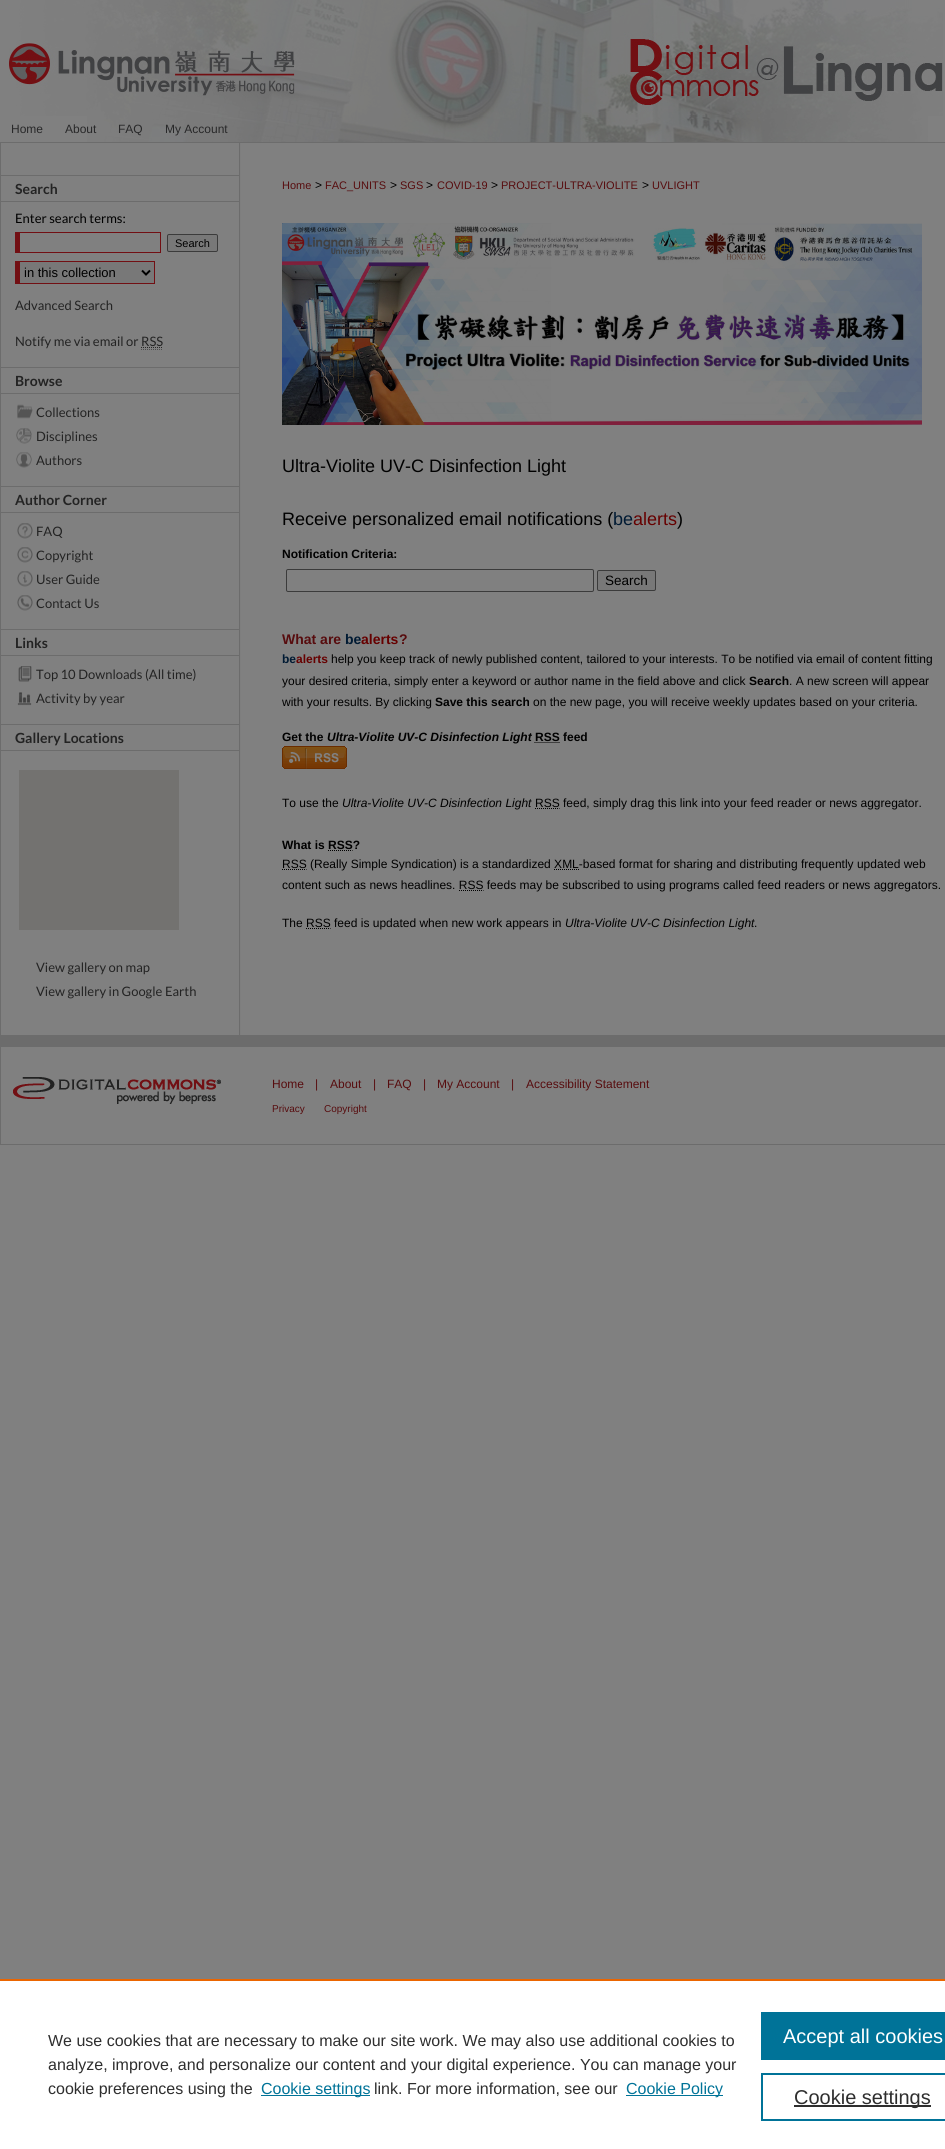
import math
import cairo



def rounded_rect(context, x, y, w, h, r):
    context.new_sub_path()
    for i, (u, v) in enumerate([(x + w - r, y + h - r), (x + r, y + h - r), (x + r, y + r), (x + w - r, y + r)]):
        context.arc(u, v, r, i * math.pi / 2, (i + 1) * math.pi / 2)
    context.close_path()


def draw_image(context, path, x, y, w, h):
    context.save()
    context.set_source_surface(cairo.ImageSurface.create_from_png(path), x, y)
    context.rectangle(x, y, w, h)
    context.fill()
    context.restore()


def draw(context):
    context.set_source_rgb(128 / 255, 128 / 255, 128 / 255)
    context.paint()
    draw_image(context, "images/1.png", 0, 142, 945, 1)
    draw_image(context, "images/2.png", 9, 0, 934, 116)
    draw_image(context, "images/3.png", 87, 116, 841, 26)
    draw_image(context, "images/4.png", 0, 143, 945, 892)
    context.set_source_rgb(108 / 255, 108 / 255, 108 / 255)
    context.rectangle(0, 175, 240, 1)
    context.fill()
    context.rectangle(0, 201, 240, 1)
    context.fill()
    context.set_source_rgb(114 / 255, 15 / 255, 19 / 255)
    context.rectangle(15, 232, 146, 1)
    context.fill()
    context.rectangle(160, 232, 1, 21)
    context.fill()
    context.rectangle(15, 252, 146, 1)
    context.fill()
    context.rectangle(15, 232, 5, 21)
    context.fill()
    context.set_source_rgb(120 / 255, 120 / 255, 120 / 255)
    rounded_rect(context, 167.5, 234.5, 50, 17, 1.5)
    context.fill_preserve()
    context.set_source_rgb(59 / 255, 59 / 255, 59 / 255)
    context.set_line_width(1)
    context.stroke()
    context.set_source_rgb(120 / 255, 120 / 255, 120 / 255)
    context.rectangle(20, 262, 134, 21)
    context.fill()
    context.set_source_rgb(114 / 255, 15 / 255, 19 / 255)
    context.rectangle(15, 261, 140, 1)
    context.fill()
    context.rectangle(154, 261, 1, 23)
    context.fill()
    context.rectangle(15, 283, 140, 1)
    context.fill()
    context.rectangle(15, 261, 5, 23)
    context.fill()
    context.new_path()
    context.move_to(142, 270.5)
    context.line_to(146, 274.5)
    context.line_to(150, 270.5)
    context.set_source_rgb(0, 0, 0)
    context.set_line_width(2)
    context.stroke()
    context.new_path()
    context.move_to(141, 349.5)
    context.line_to(163, 349.5)
    context.set_source_rgb(77 / 255, 77 / 255, 77 / 255)
    context.set_line_width(1)
    context.set_dash([1, 1])
    context.stroke()
    context.set_source_rgb(108 / 255, 108 / 255, 108 / 255)
    context.rectangle(0, 367, 240, 1)
    context.fill()
    context.rectangle(0, 393, 240, 1)
    context.fill()
    draw_image(context, "images/5.png", 17, 404, 16, 15)
    draw_image(context, "images/6.png", 16, 428, 16, 16)
    draw_image(context, "images/7.png", 16, 452, 16, 16)
    context.rectangle(0, 486, 240, 1)
    context.fill()
    context.rectangle(0, 512, 240, 1)
    context.fill()
    draw_image(context, "images/8.png", 17, 523, 16, 16)
    draw_image(context, "images/9.png", 17, 547, 16, 16)
    draw_image(context, "images/10.png", 17, 571, 16, 16)
    draw_image(context, "images/11.png", 17, 595, 16, 16)
    context.rectangle(0, 629, 240, 1)
    context.fill()
    context.rectangle(0, 655, 240, 1)
    context.fill()
    draw_image(context, "images/12.png", 18, 666, 14, 16)
    draw_image(context, "images/13.png", 17, 692, 15, 14)
    context.rectangle(0, 724, 240, 1)
    context.fill()
    context.rectangle(0, 750, 240, 1)
    context.fill()
    context.set_source_rgb(115 / 255, 114 / 255, 112 / 255)
    context.rectangle(19, 770, 160, 160)
    context.fill()
    draw_image(context, "images/14.png", 282, 223, 640, 202)
    rounded_rect(context, 286.5, 569.5, 307, 22, 1.5)
    context.set_source_rgb(59 / 255, 59 / 255, 59 / 255)
    context.set_dash([])
    context.stroke()
    context.set_source_rgb(120 / 255, 120 / 255, 120 / 255)
    rounded_rect(context, 597.5, 570.5, 58, 20, 1.5)
    context.fill_preserve()
    context.set_source_rgb(59 / 255, 59 / 255, 59 / 255)
    context.stroke()
    context.new_path()
    context.move_to(534.5, 742.5)
    context.line_to(559.5, 742.5)
    context.set_source_rgb(0, 0, 0)
    context.set_dash([1, 1])
    context.stroke()
    draw_image(context, "images/15.png", 282, 746, 65, 23)
    context.new_path()
    context.move_to(535, 808.5)
    context.line_to(559.5, 808.5)
    context.stroke()
    context.new_path()
    context.move_to(328, 850.5)
    context.line_to(352.5, 850.5)
    context.stroke()
    context.new_path()
    context.move_to(282, 869.5)
    context.line_to(306.5, 869.5)
    context.stroke()
    context.new_path()
    context.move_to(554, 869.5)
    context.line_to(579, 869.5)
    context.stroke()
    context.new_path()
    context.move_to(459, 890.5)
    context.line_to(483.5, 890.5)
    context.stroke()
    context.new_path()
    context.move_to(306, 928.5)
    context.line_to(330.5, 928.5)
    context.stroke()
    context.set_source_rgb(108 / 255, 108 / 255, 108 / 255)
    context.rectangle(0, 1035, 945, 12)
    context.fill()
    context.rectangle(0, 1144, 945, 1)
    context.fill()
    draw_image(context, "images/16.png", 0, 1047, 221, 97)
    context.set_source_rgb(1, 1, 1)
    context.rectangle(0, 1981, 945, 168)
    context.fill()
    context.set_source_rgb(235 / 255, 101 / 255, 0)
    context.rectangle(0, 1979, 945, 2)
    context.fill()
    context.set_source_rgb(0, 115 / 255, 152 / 255)
    context.rectangle(261, 2095, 109, 1)
    context.fill()
    context.rectangle(626, 2095, 97, 1)
    context.fill()
    context.rectangle(761, 2012, 184, 48)
    context.fill()
    context.rectangle(762, 2074, 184, 46)
    context.set_line_width(2)
    context.set_dash([])
    context.stroke()
    context.set_source_rgb(46 / 255, 46 / 255, 46 / 255)
    context.rectangle(794, 2105, 137, 2)
    context.fill()
    context.select_font_face("Liberation Sans")
    context.set_font_size(12)
    context.set_source_rgb(40 / 255, 40 / 255, 41 / 255)
    context.move_to(11, 133)
    context.show_text("Home")
    context.move_to(65, 133)
    context.show_text("About")
    context.move_to(118, 133)
    context.show_text("FAQ")
    context.move_to(165, 133)
    context.show_text("My Account")
    context.select_font_face("Lato", cairo.FontSlant.NORMAL, cairo.FontWeight.BOLD)
    context.set_font_size(14)
    context.set_source_rgb(35 / 255, 35 / 255, 35 / 255)
    context.move_to(15, 194)
    context.show_text("Search")
    context.select_font_face("Lato")
    context.set_font_size(13)
    context.set_source_rgb(0, 0, 0)
    context.move_to(15, 223)
    context.show_text("Enter search terms:")
    context.select_font_face("Liberation Sans")
    context.set_font_size(11)
    context.move_to(175, 247)
    context.show_text("Search")
    context.set_font_size(13)
    context.move_to(24, 277)
    context.show_text("in this collection")
    context.select_font_face("Lato")
    context.set_source_rgb(35 / 255, 35 / 255, 35 / 255)
    context.move_to(15, 310)
    context.show_text("Advanced Search")
    context.move_to(15, 346)
    context.show_text("Notify me via email or RSS")
    context.new_path()
    context.move_to(141, 347.5)
    context.line_to(163, 347.5)
    context.set_source_rgb(39 / 255, 39 / 255, 39 / 255)
    context.set_line_width(1)
    context.set_dash([1, 1])
    context.stroke()
    context.select_font_face("Lato", cairo.FontSlant.NORMAL, cairo.FontWeight.BOLD)
    context.set_font_size(14)
    context.set_source_rgb(35 / 255, 35 / 255, 35 / 255)
    context.move_to(15, 386)
    context.show_text("Browse")
    context.select_font_face("Lato")
    context.set_font_size(13)
    context.move_to(36, 417)
    context.show_text("Collections")
    context.move_to(36, 441)
    context.show_text("Disciplines")
    context.move_to(36, 465)
    context.show_text("Authors")
    context.select_font_face("Lato", cairo.FontSlant.NORMAL, cairo.FontWeight.BOLD)
    context.set_font_size(14)
    context.move_to(15, 505)
    context.show_text("Author Corner")
    context.select_font_face("Lato")
    context.set_font_size(13)
    context.move_to(36, 536)
    context.show_text("FAQ")
    context.move_to(36, 560)
    context.show_text("Copyright")
    context.move_to(36, 584)
    context.show_text("User Guide")
    context.move_to(36, 608)
    context.show_text("Contact Us")
    context.select_font_face("Lato", cairo.FontSlant.NORMAL, cairo.FontWeight.BOLD)
    context.set_font_size(14)
    context.move_to(15, 648)
    context.show_text("Links")
    context.select_font_face("Lato")
    context.set_font_size(13)
    context.move_to(36, 679)
    context.show_text("Top 10 Downloads (All time)")
    context.move_to(36, 703)
    context.show_text("Activity by year")
    context.select_font_face("Lato", cairo.FontSlant.NORMAL, cairo.FontWeight.BOLD)
    context.set_font_size(14)
    context.move_to(15, 743)
    context.show_text("Gallery Locations")
    context.select_font_face("Lato")
    context.set_font_size(13)
    context.move_to(36, 972)
    context.show_text("View gallery on map")
    context.move_to(36, 996)
    context.show_text("View gallery in Google Earth")
    context.select_font_face("Liberation Sans")
    context.set_font_size(11)
    context.set_source_rgb(87 / 255, 12 / 255, 14 / 255)
    context.move_to(282, 189)
    context.show_text("Home")
    context.set_font_size(12)
    context.set_source_rgb(0, 0, 0)
    context.move_to(315, 189)
    context.show_text(">")
    context.set_font_size(11)
    context.set_source_rgb(87 / 255, 12 / 255, 14 / 255)
    context.move_to(325, 189)
    context.show_text("FAC_UNITS")
    context.set_font_size(12)
    context.set_source_rgb(0, 0, 0)
    context.move_to(390, 189)
    context.show_text(">")
    context.set_font_size(11)
    context.set_source_rgb(87 / 255, 12 / 255, 14 / 255)
    context.move_to(400, 189)
    context.show_text("SGS")
    context.set_font_size(12)
    context.set_source_rgb(0, 0, 0)
    context.move_to(426, 189)
    context.show_text(">")
    context.set_font_size(11)
    context.set_source_rgb(87 / 255, 12 / 255, 14 / 255)
    context.move_to(437, 189)
    context.show_text("COVID-19")
    context.set_font_size(12)
    context.set_source_rgb(0, 0, 0)
    context.move_to(491, 189)
    context.show_text(">")
    context.set_font_size(11)
    context.set_source_rgb(87 / 255, 12 / 255, 14 / 255)
    context.move_to(501, 189)
    context.show_text("PROJECT-ULTRA-VIOLITE")
    context.set_font_size(12)
    context.set_source_rgb(0, 0, 0)
    context.move_to(642, 189)
    context.show_text(">")
    context.set_font_size(11)
    context.set_source_rgb(87 / 255, 12 / 255, 14 / 255)
    context.move_to(652, 189)
    context.show_text("UVLIGHT")
    context.set_font_size(18)
    context.set_source_rgb(0, 0, 0)
    context.move_to(282, 472)
    context.show_text("Ultra-Violite UV-C Disinfection Light")
    context.move_to(282, 525)
    context.show_text("Receive personalized email notifications (")
    context.set_source_rgb(0, 26 / 255, 51 / 255)
    context.move_to(613, 525)
    context.show_text("be")
    context.set_source_rgb(102 / 255, 0, 0)
    context.move_to(633, 525)
    context.show_text("alerts")
    context.set_source_rgb(0, 0, 0)
    context.move_to(677, 525)
    context.show_text(")")
    context.select_font_face("Liberation Sans", cairo.FontSlant.NORMAL, cairo.FontWeight.BOLD)
    context.set_font_size(12)
    context.move_to(282, 558)
    context.show_text("Notification Criteria:")
    context.select_font_face("Liberation Sans")
    context.set_font_size(13.5)
    context.move_to(605, 585)
    context.show_text("Search")
    context.select_font_face("Liberation Sans", cairo.FontSlant.NORMAL, cairo.FontWeight.BOLD)
    context.set_font_size(14)
    context.set_source_rgb(87 / 255, 12 / 255, 14 / 255)
    context.move_to(282, 644)
    context.show_text("What are")
    context.set_source_rgb(0, 26 / 255, 51 / 255)
    context.move_to(345, 644)
    context.show_text("be")
    context.set_source_rgb(102 / 255, 0, 0)
    context.move_to(361, 644)
    context.show_text("alerts")
    context.set_source_rgb(87 / 255, 12 / 255, 14 / 255)
    context.move_to(399, 644)
    context.show_text("?")
    context.set_font_size(12)
    context.set_source_rgb(0, 26 / 255, 51 / 255)
    context.move_to(282, 663)
    context.show_text("be")
    context.set_source_rgb(102 / 255, 0, 0)
    context.move_to(296, 663)
    context.show_text("alerts")
    context.select_font_face("Liberation Sans")
    context.set_source_rgb(0, 0, 0)
    context.move_to(331, 663)
    context.show_text("help you keep track of newly published content, tailored to your interests. To be notified via email of content fitting")
    context.move_to(282, 685)
    context.show_text("your desired criteria, simply enter a keyword or author name in the field above and click")
    context.select_font_face("Liberation Sans", cairo.FontSlant.NORMAL, cairo.FontWeight.BOLD)
    context.move_to(749, 685)
    context.show_text("Search")
    context.select_font_face("Liberation Sans")
    context.move_to(789, 685)
    context.show_text(". A new screen will appear")
    context.move_to(282, 706)
    context.show_text("with your results. By clicking")
    context.select_font_face("Liberation Sans", cairo.FontSlant.NORMAL, cairo.FontWeight.BOLD)
    context.move_to(435, 706)
    context.show_text("Save this search")
    context.select_font_face("Liberation Sans")
    context.move_to(533, 706)
    context.show_text("on the new page, you will receive weekly updates based on your criteria.")
    context.select_font_face("Liberation Sans", cairo.FontSlant.NORMAL, cairo.FontWeight.BOLD)
    context.move_to(282, 741)
    context.show_text("Get the")
    context.select_font_face("Liberation Sans", cairo.FontSlant.ITALIC, cairo.FontWeight.BOLD)
    context.move_to(327, 741)
    context.show_text("Ultra-Violite UV-C Disinfection Light")
    context.select_font_face("Liberation Sans", cairo.FontSlant.NORMAL, cairo.FontWeight.BOLD)
    context.move_to(535, 741)
    context.show_text("RSS feed")
    context.select_font_face("Liberation Sans")
    context.move_to(282, 807)
    context.show_text("To use the")
    context.select_font_face("Liberation Sans", cairo.FontSlant.ITALIC)
    context.move_to(342, 807)
    context.show_text("Ultra-Violite UV-C Disinfection Light")
    context.select_font_face("Liberation Sans")
    context.move_to(535, 807)
    context.show_text("RSS feed, simply drag this link into your feed reader or news aggregator.")
    context.select_font_face("Liberation Sans", cairo.FontSlant.NORMAL, cairo.FontWeight.BOLD)
    context.move_to(282, 849)
    context.show_text("What is RSS?")
    context.select_font_face("Liberation Sans")
    context.move_to(282, 868)
    context.show_text("RSS (Really Simple Syndication) is a standardized XML-based format for sharing and distributing frequently updated web")
    context.move_to(282, 889)
    context.show_text("content such as news headlines. RSS feeds may be subscribed to using programs called feed readers or news aggregators.")
    context.move_to(282, 927)
    context.show_text("The RSS feed is updated when new work appears in")
    context.select_font_face("Liberation Sans", cairo.FontSlant.ITALIC)
    context.move_to(565, 927)
    context.show_text("Ultra-Violite UV-C Disinfection Light")
    context.select_font_face("Liberation Sans")
    context.move_to(754, 927)
    context.show_text(".")
    context.set_source_rgb(87 / 255, 12 / 255, 14 / 255)
    context.move_to(272, 1088)
    context.show_text("Home")
    context.move_to(315, 1088)
    context.show_text("|")
    context.move_to(330, 1088)
    context.show_text("About")
    context.move_to(373, 1088)
    context.show_text("|")
    context.move_to(387, 1088)
    context.show_text("FAQ")
    context.move_to(423, 1088)
    context.show_text("|")
    context.move_to(437, 1088)
    context.show_text("My Account")
    context.move_to(511, 1088)
    context.show_text("|")
    context.move_to(526, 1088)
    context.show_text("Accessibility Statement")
    context.set_font_size(10)
    context.move_to(272, 1112)
    context.show_text("Privacy")
    context.move_to(324, 1112)
    context.show_text("Copyright")
    context.set_font_size(16)
    context.set_source_rgb(46 / 255, 46 / 255, 46 / 255)
    context.move_to(48, 2046)
    context.show_text("We use cookies that are necessary to make our site work. We may also use additional cookies to")
    context.move_to(48, 2070)
    context.show_text("analyze, improve, and personalize our content and your digital experience. You can manage your")
    context.move_to(48, 2094)
    context.show_text("cookie preferences using the")
    context.set_source_rgb(0, 115 / 255, 152 / 255)
    context.move_to(261, 2094)
    context.show_text("Cookie settings")
    context.set_source_rgb(46 / 255, 46 / 255, 46 / 255)
    context.move_to(374, 2094)
    context.show_text("link. For more information, see our")
    context.set_source_rgb(0, 115 / 255, 152 / 255)
    context.move_to(626, 2094)
    context.show_text("Cookie Policy")
    context.set_font_size(20)
    context.set_source_rgb(1, 1, 1)
    context.move_to(783, 2043)
    context.show_text("Accept all cookies")
    context.set_source_rgb(46 / 255, 46 / 255, 46 / 255)
    context.move_to(794, 2104)
    context.show_text("Cookie settings")


surface = cairo.ImageSurface(cairo.Format.RGB24, 945, 2149)
context = cairo.Context(surface)
options = cairo.FontOptions()
options.set_hint_metrics(cairo.HintMetrics.OFF)
options.set_hint_style(cairo.HintStyle.NONE)
context.set_font_options(options)
context.set_miter_limit(4)
draw(context)
surface.write_to_png("out.png")
